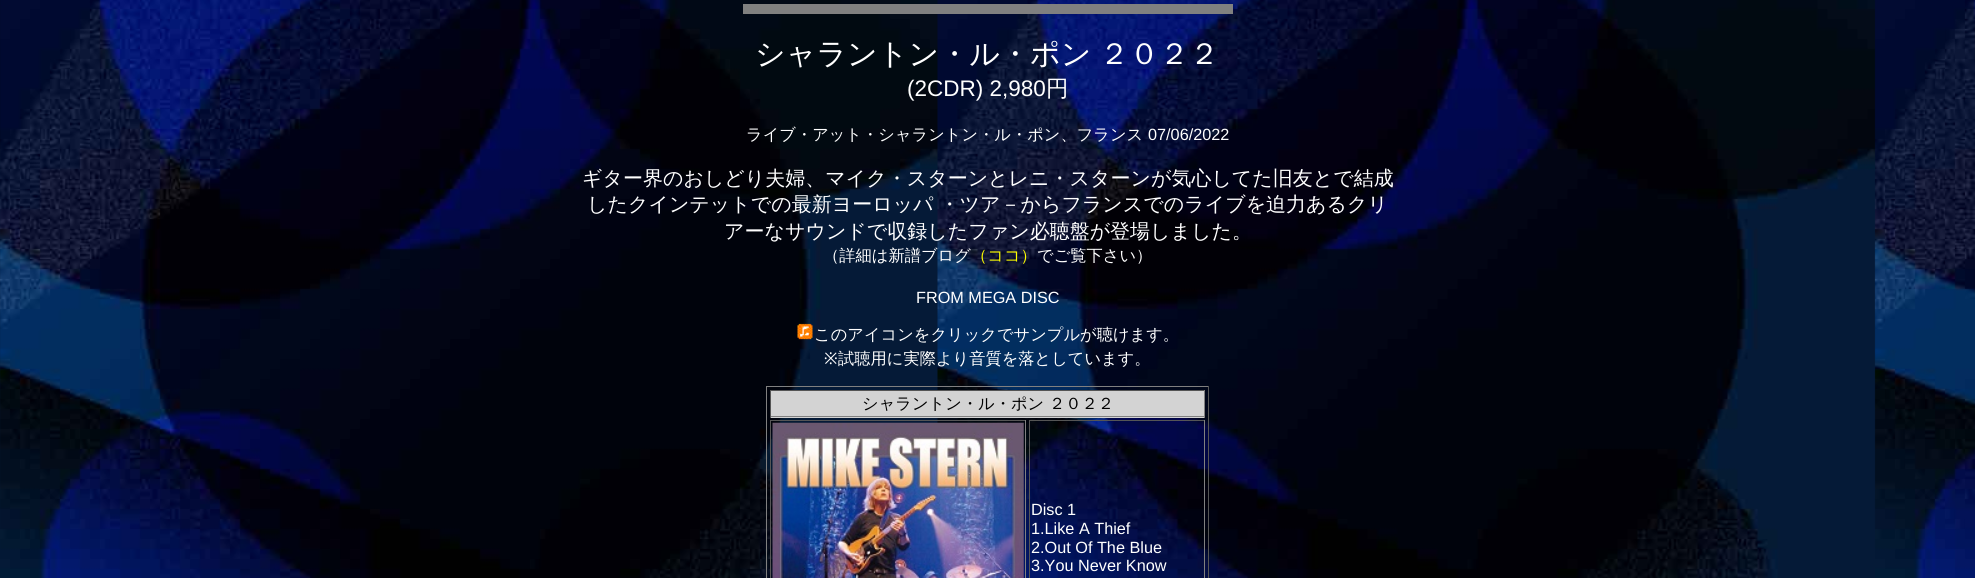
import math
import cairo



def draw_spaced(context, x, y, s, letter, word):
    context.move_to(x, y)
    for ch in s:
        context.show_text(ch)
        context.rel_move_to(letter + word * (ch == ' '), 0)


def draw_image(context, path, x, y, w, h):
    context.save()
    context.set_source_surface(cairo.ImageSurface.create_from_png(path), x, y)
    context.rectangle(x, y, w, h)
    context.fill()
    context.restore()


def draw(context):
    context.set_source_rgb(1, 1, 1)
    context.paint()
    draw_image(context, "images/1.png", 0, 0, 1975, 578)
    context.set_source_rgb(128 / 255, 128 / 255, 128 / 255)
    context.rectangle(743, 4, 490, 10)
    context.fill()
    draw_image(context, "images/2.png", 797, 323, 16, 17)
    context.rectangle(766, 386, 443, 1)
    context.fill()
    context.set_source_rgb(85 / 255, 85 / 255, 85 / 255)
    context.rectangle(1208, 386, 1, 192)
    context.fill()
    context.set_source_rgb(128 / 255, 128 / 255, 128 / 255)
    context.rectangle(766, 386, 1, 192)
    context.fill()
    context.set_source_rgb(211 / 255, 211 / 255, 211 / 255)
    context.rectangle(771, 391, 433, 27)
    context.fill()
    context.set_source_rgb(85 / 255, 85 / 255, 85 / 255)
    context.rectangle(770, 390, 435, 1)
    context.fill()
    context.set_source_rgb(128 / 255, 128 / 255, 128 / 255)
    context.rectangle(1204, 390, 1, 28)
    context.fill()
    context.rectangle(770, 416, 435, 1)
    context.fill()
    context.set_source_rgb(85 / 255, 85 / 255, 85 / 255)
    context.rectangle(770, 390, 1, 28)
    context.fill()
    context.rectangle(770, 420, 256, 1)
    context.fill()
    context.set_source_rgb(128 / 255, 128 / 255, 128 / 255)
    context.rectangle(1025, 420, 1, 158)
    context.fill()
    context.set_source_rgb(85 / 255, 85 / 255, 85 / 255)
    context.rectangle(770, 420, 1, 158)
    context.fill()
    draw_image(context, "images/3.png", 772, 422, 252, 156)
    context.rectangle(1029, 420, 176, 1)
    context.fill()
    context.set_source_rgb(128 / 255, 128 / 255, 128 / 255)
    context.rectangle(1204, 420, 1, 158)
    context.fill()
    context.set_source_rgb(85 / 255, 85 / 255, 85 / 255)
    context.rectangle(1029, 420, 1, 158)
    context.fill()
    context.select_font_face("WenQuanYi Zen Hei Medium")
    context.set_font_size(30)
    context.set_source_rgb(1, 1, 1)
    draw_spaced(context, 755, 64, "シャラントン・ル・ポン ２０２２", 0, -1)
    context.select_font_face("Liberation Sans")
    context.set_font_size(22.5)
    context.move_to(907, 96)
    context.show_text("(2CDR) 2,980")
    context.select_font_face("WenQuanYi Zen Hei Medium")
    context.move_to(1046, 96)
    context.show_text("円")
    context.set_font_size(16.25)
    context.move_to(746, 140)
    context.show_text("ライブ・アット・シャラントン・ル・ポン、フランス")
    context.select_font_face("Liberation Sans")
    context.move_to(1148, 140)
    context.show_text("07/06/2022")
    context.select_font_face("WenQuanYi Zen Hei Medium")
    context.set_font_size(20)
    context.move_to(582, 185)
    context.show_text("ギター界のおしどり夫婦、マイク・スターンとレニ・スターンが気心してた旧友とで結成")
    context.move_to(587, 211)
    context.show_text("したクインテットでの最新ヨーロッパ ・ツア－からフランスでのライブを迫力あるクリ")
    context.move_to(724, 238)
    context.show_text("アーなサウンドで収録したファン必聴盤が登場しました。")
    context.set_font_size(16.25)
    context.move_to(823, 261)
    context.show_text("（詳細は新譜ブログ")
    context.set_source_rgb(1, 1, 0)
    context.move_to(971, 261)
    context.show_text("（ココ）")
    context.set_source_rgb(1, 1, 1)
    context.move_to(1037, 261)
    context.show_text("でご覧下さい）")
    context.select_font_face("Liberation Sans")
    context.move_to(916, 303)
    context.show_text("FROM MEGA DISC")
    context.select_font_face("WenQuanYi Zen Hei Medium")
    context.move_to(814, 340)
    context.show_text("このアイコンをクリックでサンプルが聴けます。")
    context.select_font_face("Noto Sans")
    context.move_to(824, 364)
    context.show_text("※")
    context.select_font_face("WenQuanYi Zen Hei Medium")
    context.move_to(838, 364)
    context.show_text("試聴用に実際より音質を落としています。")
    context.set_source_rgb(0, 0, 0)
    context.move_to(862, 409)
    context.show_text("シャラントン・ル・ポン ２０２２")
    context.select_font_face("Liberation Sans")
    context.set_source_rgb(1, 1, 1)
    context.move_to(1031, 515)
    context.show_text("Disc 1")
    context.move_to(1031, 534)
    context.show_text("1.Like A Thief")
    context.move_to(1031, 553)
    context.show_text("2.Out Of The Blue")
    context.move_to(1031, 571)
    context.show_text("3.You Never Know")


surface = cairo.ImageSurface(cairo.Format.RGB24, 1975, 578)
context = cairo.Context(surface)
options = cairo.FontOptions()
options.set_hint_metrics(cairo.HintMetrics.OFF)
options.set_hint_style(cairo.HintStyle.NONE)
context.set_font_options(options)
context.set_miter_limit(4)
draw(context)
surface.write_to_png("out.png")
